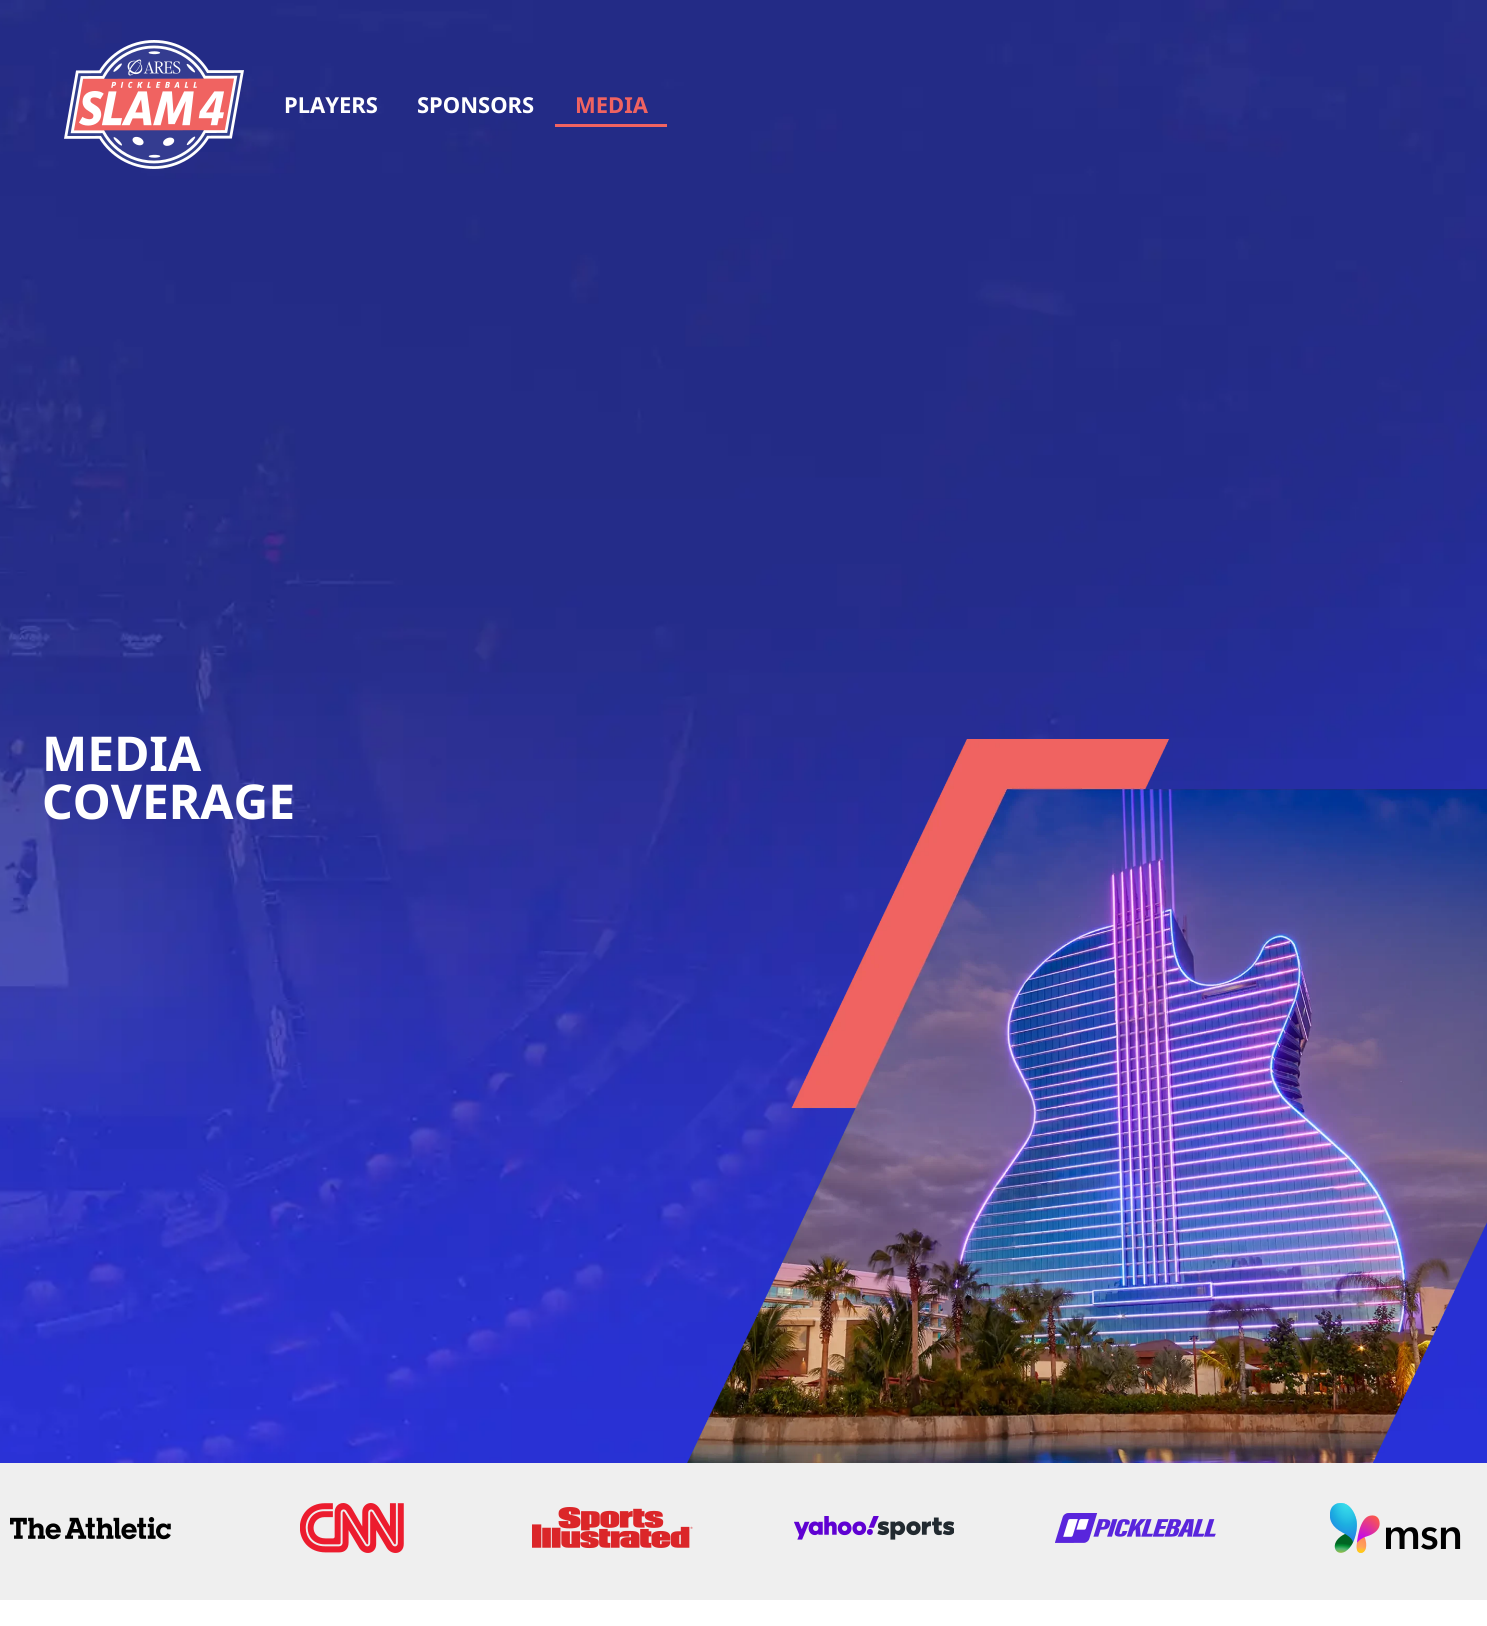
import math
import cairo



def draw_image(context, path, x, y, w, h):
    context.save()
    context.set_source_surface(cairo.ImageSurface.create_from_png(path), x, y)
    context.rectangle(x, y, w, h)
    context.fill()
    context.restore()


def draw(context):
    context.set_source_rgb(1, 1, 1)
    context.paint()
    draw_image(context, "images/2.png", 0, 0, 1487, 1463)
    draw_image(context, "images/1.png", 64, 40, 180, 129)
    context.set_source_rgb(240 / 255, 99 / 255, 97 / 255)
    context.rectangle(555, 124, 112, 3)
    context.fill()
    draw_image(context, "images/3.png", 687, 739, 800, 724)
    context.set_source_rgb(239 / 255, 239 / 255, 239 / 255)
    context.rectangle(0, 1463, 1487, 137)
    context.fill()
    draw_image(context, "images/4.png", 10, 1517, 161, 23)
    draw_image(context, "images/5.png", 300, 1503, 104, 50)
    draw_image(context, "images/6.png", 532, 1507, 161, 42)
    draw_image(context, "images/7.png", 794, 1516, 160, 24)
    draw_image(context, "images/8.png", 1055, 1513, 161, 30)
    draw_image(context, "images/9.png", 1330, 1503, 131, 50)
    context.select_font_face("Noto Sans", cairo.FontSlant.NORMAL, cairo.FontWeight.BOLD)
    context.set_font_size(22)
    context.set_source_rgb(1, 1, 1)
    context.move_to(284, 113)
    context.show_text("PLAYERS")
    context.move_to(417, 113)
    context.show_text("SPONSORS")
    context.set_source_rgb(240 / 255, 99 / 255, 97 / 255)
    context.move_to(575, 113)
    context.show_text("MEDIA")
    context.set_font_size(48)
    context.set_source_rgb(1, 1, 1)
    context.move_to(42, 771)
    context.show_text("MEDIA")
    context.move_to(42, 819)
    context.show_text("COVERAGE")


surface = cairo.ImageSurface(cairo.Format.RGB24, 1487, 1626)
context = cairo.Context(surface)
options = cairo.FontOptions()
options.set_hint_metrics(cairo.HintMetrics.OFF)
options.set_hint_style(cairo.HintStyle.NONE)
context.set_font_options(options)
context.set_miter_limit(4)
draw(context)
surface.write_to_png("out.png")
